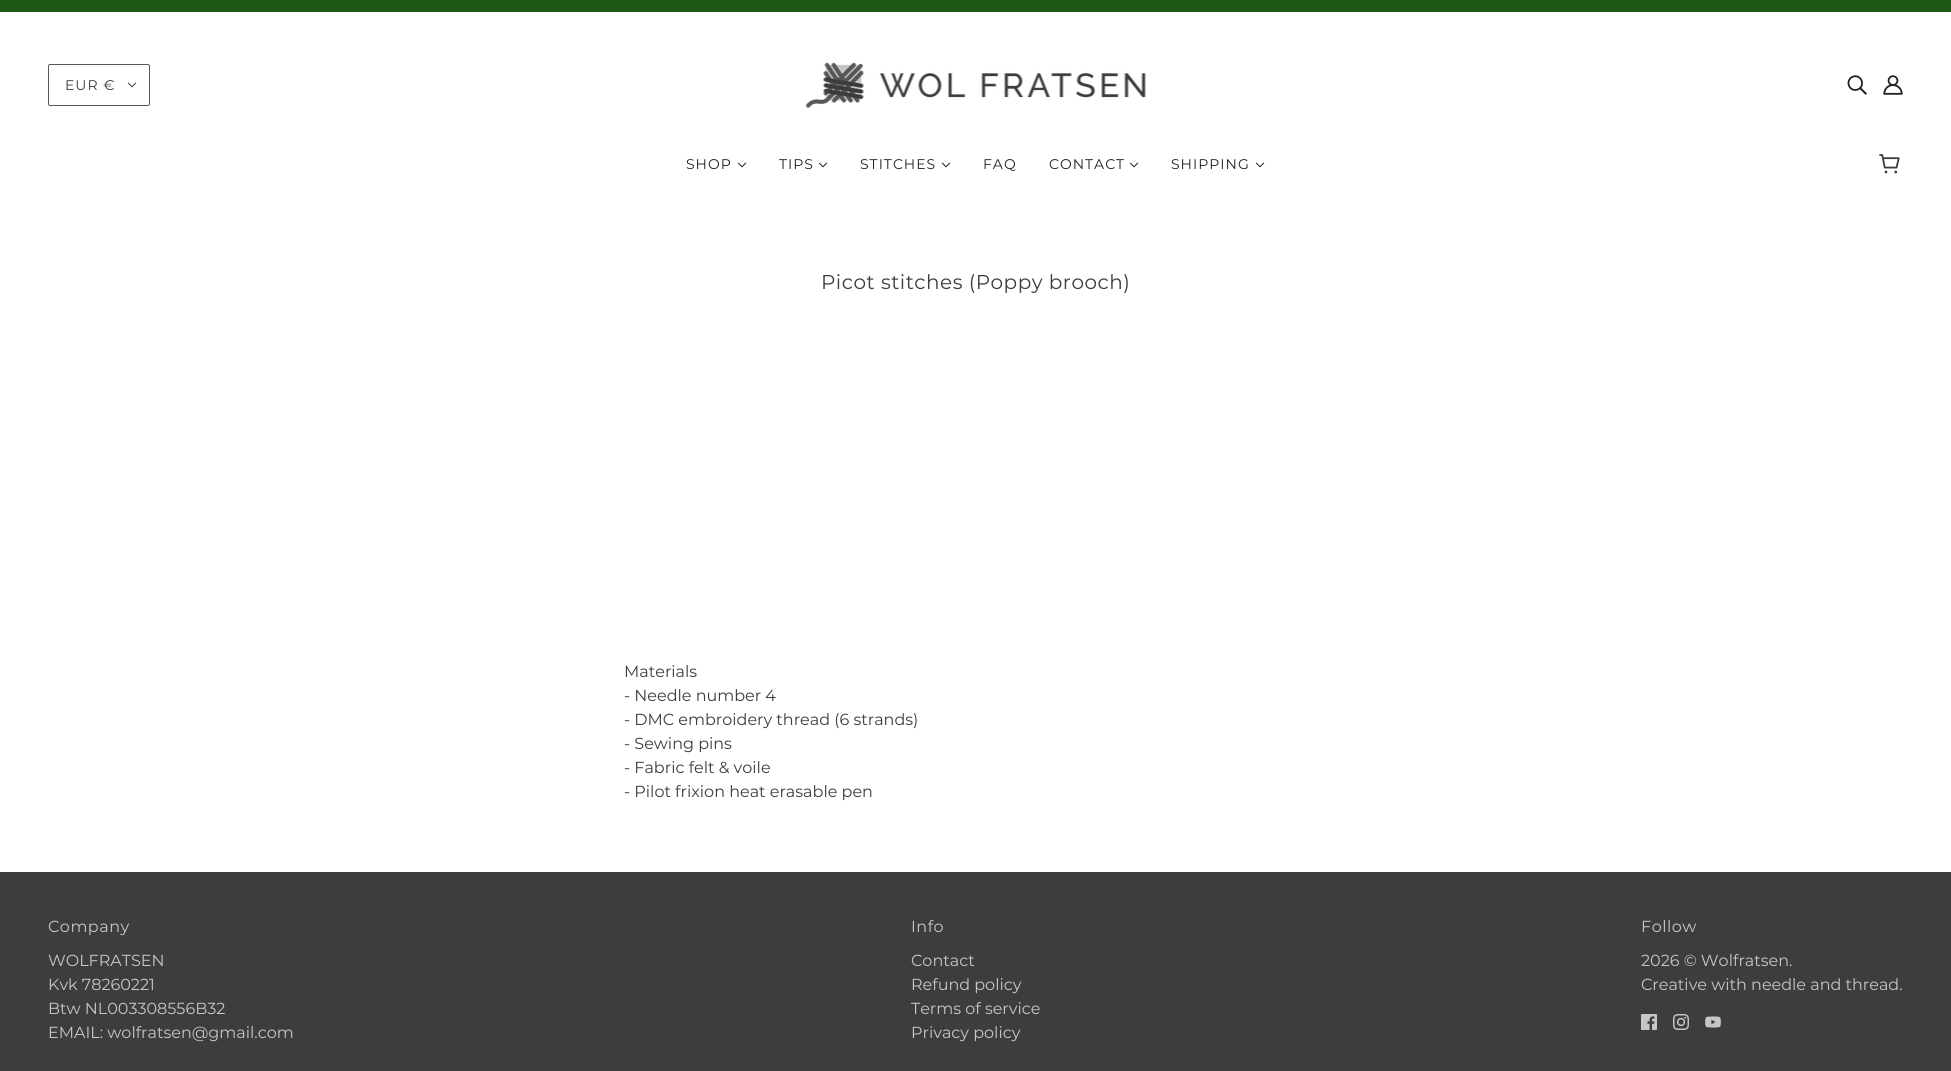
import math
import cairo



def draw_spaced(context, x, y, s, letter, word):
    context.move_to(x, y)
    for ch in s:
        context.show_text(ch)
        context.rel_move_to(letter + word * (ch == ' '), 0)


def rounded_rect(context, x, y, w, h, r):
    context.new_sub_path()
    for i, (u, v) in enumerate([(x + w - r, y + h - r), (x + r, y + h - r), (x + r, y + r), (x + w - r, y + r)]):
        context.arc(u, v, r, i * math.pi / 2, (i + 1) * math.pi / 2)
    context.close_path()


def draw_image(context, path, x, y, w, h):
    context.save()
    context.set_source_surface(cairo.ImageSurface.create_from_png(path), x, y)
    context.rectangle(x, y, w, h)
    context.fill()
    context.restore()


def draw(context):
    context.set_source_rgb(1, 1, 1)
    context.paint()
    context.set_source_rgb(30 / 255, 89 / 255, 22 / 255)
    context.rectangle(0, 0, 1951, 12)
    context.fill()
    rounded_rect(context, 48.5, 64.5, 101, 41, 1.5)
    context.set_source_rgb(88 / 255, 87 / 255, 87 / 255)
    context.set_line_width(1)
    context.stroke()
    draw_image(context, "images/1.png", 127, 82, 10, 6)
    draw_image(context, "images/2.png", 805, 62, 341, 46)
    draw_image(context, "images/3.png", 1847, 75, 20, 20)
    draw_image(context, "images/4.png", 1883, 75, 20, 20)
    draw_image(context, "images/5.png", 737, 162, 10, 6)
    draw_image(context, "images/5.png", 818, 162, 10, 6)
    draw_image(context, "images/5.png", 941, 162, 10, 6)
    draw_image(context, "images/5.png", 1129, 162, 10, 6)
    draw_image(context, "images/5.png", 1255, 162, 10, 6)
    draw_image(context, "images/6.png", 1879, 154, 21, 20)
    context.set_source_rgb(61 / 255, 61 / 255, 60 / 255)
    context.rectangle(0, 872, 1951, 199)
    context.fill()
    draw_image(context, "images/7.png", 1641, 1014, 16, 16)
    draw_image(context, "images/8.png", 1673, 1014, 16, 16)
    draw_image(context, "images/9.png", 1705, 1016, 16, 12)
    context.select_font_face("Montserrat")
    context.set_font_size(14)
    draw_spaced(context, 65, 90, "EUR €", 1, 0)
    context.set_source_rgb(33 / 255, 33 / 255, 33 / 255)
    draw_spaced(context, 686, 169, "SHOP", 1, 0)
    draw_spaced(context, 779, 169, "TIPS", 1, 0)
    draw_spaced(context, 860, 169, "STITCHES", 1, 0)
    draw_spaced(context, 983, 169, "FAQ", 1, 0)
    draw_spaced(context, 1049, 169, "CONTACT", 1, 0)
    draw_spaced(context, 1171, 169, "SHIPPING", 1, 0)
    context.set_font_size(20)
    context.set_source_rgb(61 / 255, 61 / 255, 60 / 255)
    draw_spaced(context, 821, 289, "Picot stitches (Poppy brooch)", 0.5, 0)
    context.set_font_size(16)
    context.move_to(624, 677)
    context.show_text("Materials")
    context.move_to(624, 701)
    context.show_text("- Needle number 4")
    context.move_to(624, 725)
    context.show_text("- DMC embroidery thread (6 strands)")
    context.move_to(624, 749)
    context.show_text("- Sewing pins")
    context.move_to(624, 773)
    context.show_text("- Fabric felt & voile")
    context.move_to(624, 797)
    context.show_text("- Pilot frixion heat erasable pen")
    context.set_source_rgb(198 / 255, 198 / 255, 197 / 255)
    draw_spaced(context, 48, 932, "Company", 0.5, 0)
    context.move_to(48, 966)
    context.show_text("WOLFRATSEN")
    context.move_to(48, 990)
    context.show_text("Kvk 78260221")
    context.move_to(48, 1014)
    context.show_text("Btw NL003308556B32")
    context.move_to(48, 1038)
    context.show_text("EMAIL: wolfratsen@gmail.com")
    draw_spaced(context, 911, 932, "Info", 0.5, 0)
    context.move_to(911, 966)
    context.show_text("Contact")
    context.move_to(911, 990)
    context.show_text("Refund policy")
    context.move_to(911, 1014)
    context.show_text("Terms of service")
    context.move_to(911, 1038)
    context.show_text("Privacy policy")
    draw_spaced(context, 1641, 932, "Follow", 0.5, 0)
    context.move_to(1641, 966)
    context.show_text("2026 © Wolfratsen.")
    context.move_to(1641, 990)
    context.show_text("Creative with needle and thread.")


surface = cairo.ImageSurface(cairo.Format.RGB24, 1951, 1071)
context = cairo.Context(surface)
options = cairo.FontOptions()
options.set_hint_metrics(cairo.HintMetrics.OFF)
options.set_hint_style(cairo.HintStyle.NONE)
context.set_font_options(options)
context.set_miter_limit(4)
draw(context)
surface.write_to_png("out.png")
